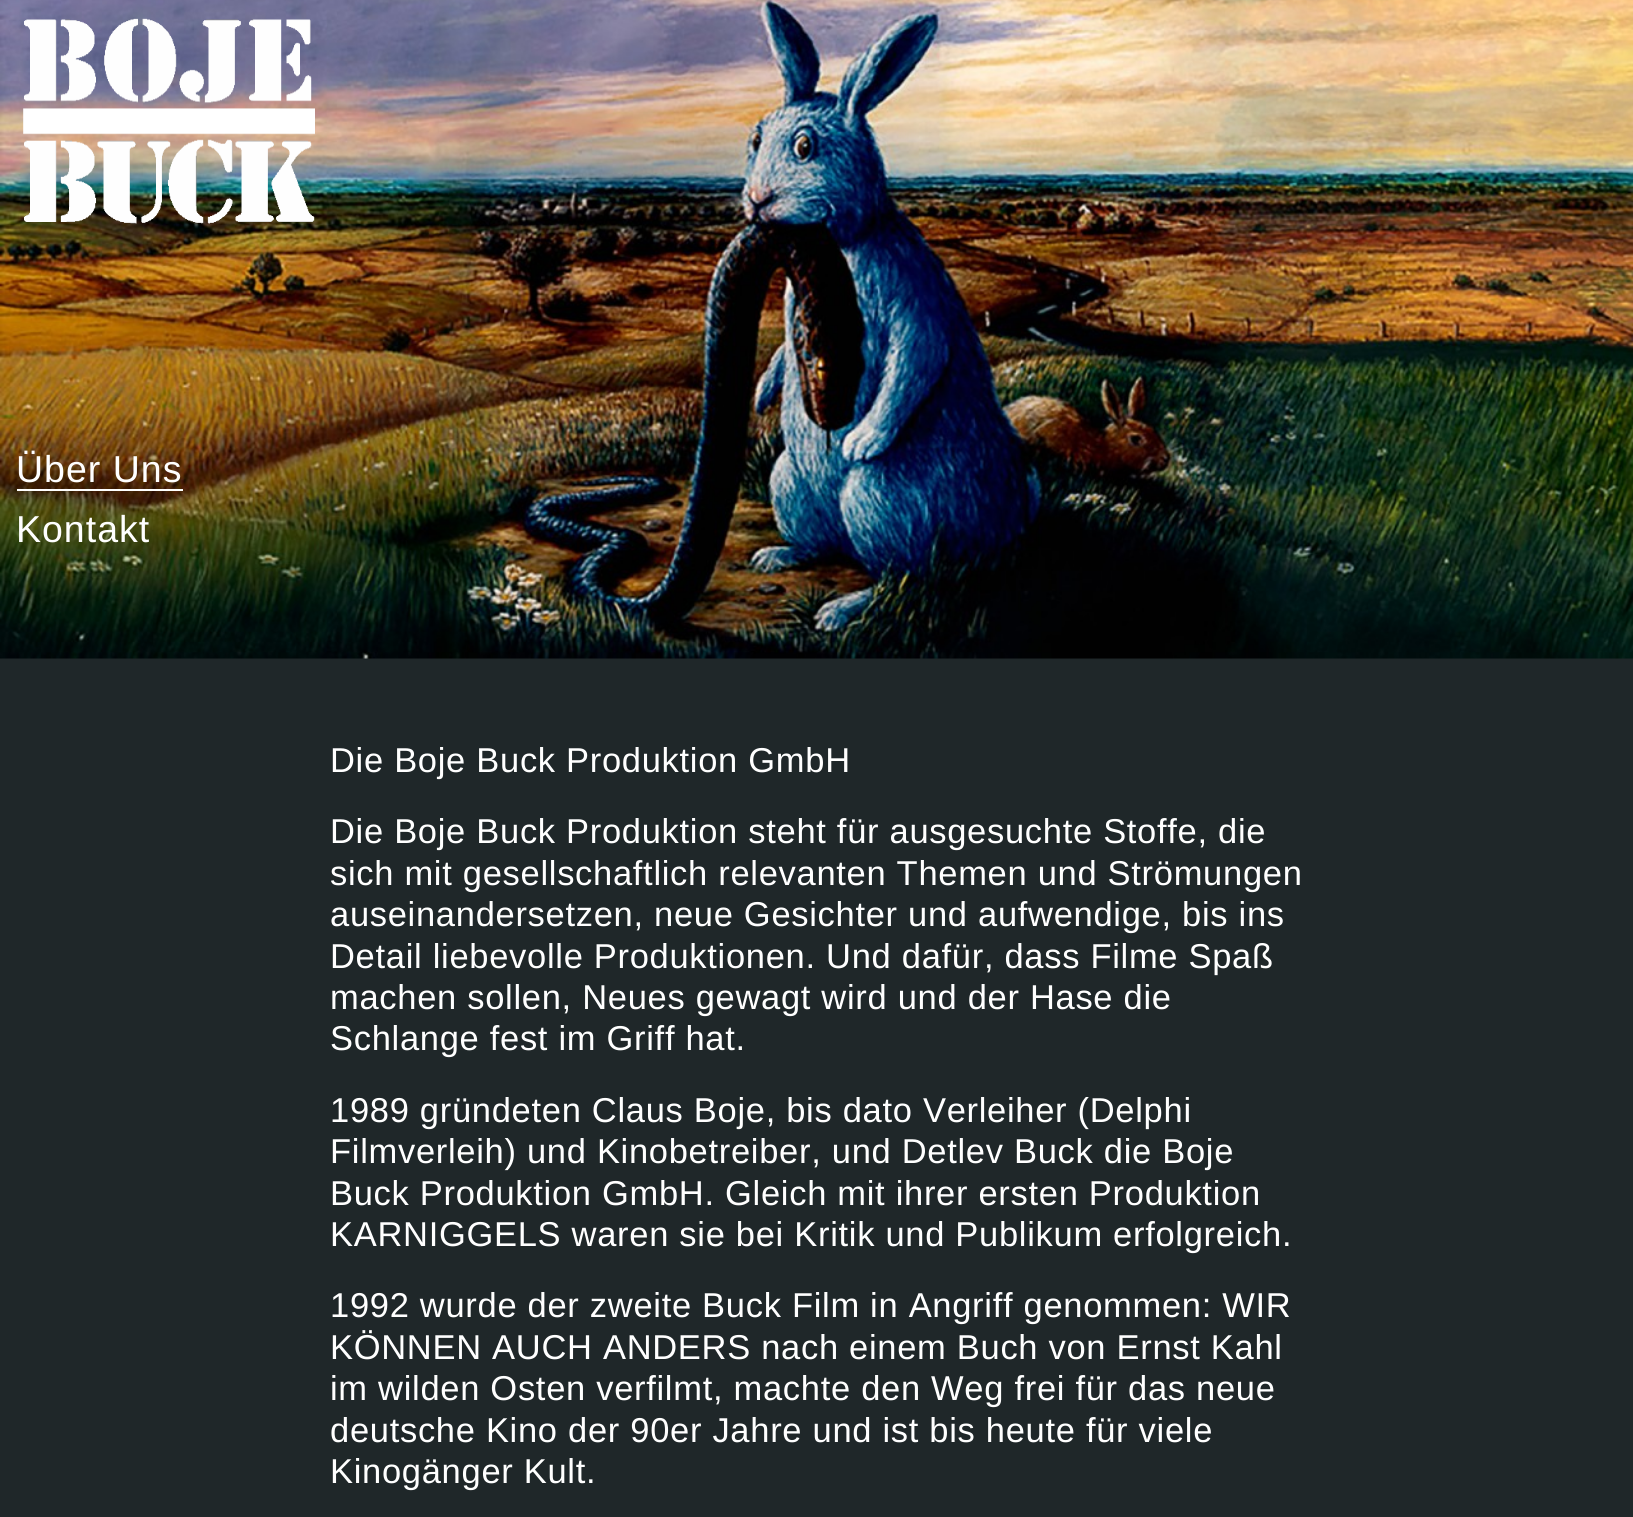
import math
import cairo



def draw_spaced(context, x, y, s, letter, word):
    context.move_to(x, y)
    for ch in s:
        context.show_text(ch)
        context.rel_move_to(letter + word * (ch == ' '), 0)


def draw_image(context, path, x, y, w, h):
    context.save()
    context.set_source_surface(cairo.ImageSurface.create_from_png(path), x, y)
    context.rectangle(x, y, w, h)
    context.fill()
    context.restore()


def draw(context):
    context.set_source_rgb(31 / 255, 39 / 255, 41 / 255)
    context.paint()
    draw_image(context, "images/2.png", 0, 0, 1633, 659)
    draw_image(context, "images/1.png", 23, 18, 292, 206)
    context.set_source_rgb(1, 1, 1)
    context.rectangle(17, 489, 166, 2)
    context.fill()
    context.select_font_face("Liberation Sans")
    context.set_font_size(37.5)
    draw_spaced(context, 16, 482, "Über Uns", 1, 0)
    draw_spaced(context, 16, 542, "Kontakt", 1, 0)
    context.set_font_size(34.5)
    draw_spaced(context, 330, 772, "Die Boje Buck Produktion GmbH", 0.7, 0)
    draw_spaced(context, 330, 843, "Die Boje Buck Produktion steht für ausgesuchte Stoffe, die", 0.7, 0)
    draw_spaced(context, 330, 885, "sich mit gesellschaftlich relevanten Themen und Strömungen", 0.7, 0)
    draw_spaced(context, 330, 926, "auseinandersetzen, neue Gesichter und aufwendige, bis ins", 0.7, 0)
    draw_spaced(context, 330, 968, "Detail liebevolle Produktionen. Und dafür, dass Filme Spaß", 0.7, 0)
    draw_spaced(context, 330, 1009, "machen sollen, Neues gewagt wird und der Hase die", 0.7, 0)
    draw_spaced(context, 330, 1050, "Schlange fest im Griff hat.", 0.7, 0)
    draw_spaced(context, 330, 1122, "1989 gründeten Claus Boje, bis dato Verleiher (Delphi", 0.7, 0)
    draw_spaced(context, 330, 1163, "Filmverleih) und Kinobetreiber, und Detlev Buck die Boje", 0.7, 0)
    draw_spaced(context, 330, 1205, "Buck Produktion GmbH. Gleich mit ihrer ersten Produktion", 0.7, 0)
    draw_spaced(context, 330, 1246, "KARNIGGELS waren sie bei Kritik und Publikum erfolgreich.", 0.7, 0)
    draw_spaced(context, 330, 1317, "1992 wurde der zweite Buck Film in Angriff genommen: WIR", 0.7, 0)
    draw_spaced(context, 330, 1359, "KÖNNEN AUCH ANDERS nach einem Buch von Ernst Kahl", 0.7, 0)
    draw_spaced(context, 330, 1400, "im wilden Osten verfilmt, machte den Weg frei für das neue", 0.7, 0)
    draw_spaced(context, 330, 1442, "deutsche Kino der 90er Jahre und ist bis heute für viele", 0.7, 0)
    draw_spaced(context, 330, 1483, "Kinogänger Kult.", 0.7, 0)


surface = cairo.ImageSurface(cairo.Format.RGB24, 1633, 1517)
context = cairo.Context(surface)
options = cairo.FontOptions()
options.set_hint_metrics(cairo.HintMetrics.OFF)
options.set_hint_style(cairo.HintStyle.NONE)
context.set_font_options(options)
context.set_miter_limit(4)
draw(context)
surface.write_to_png("out.png")
